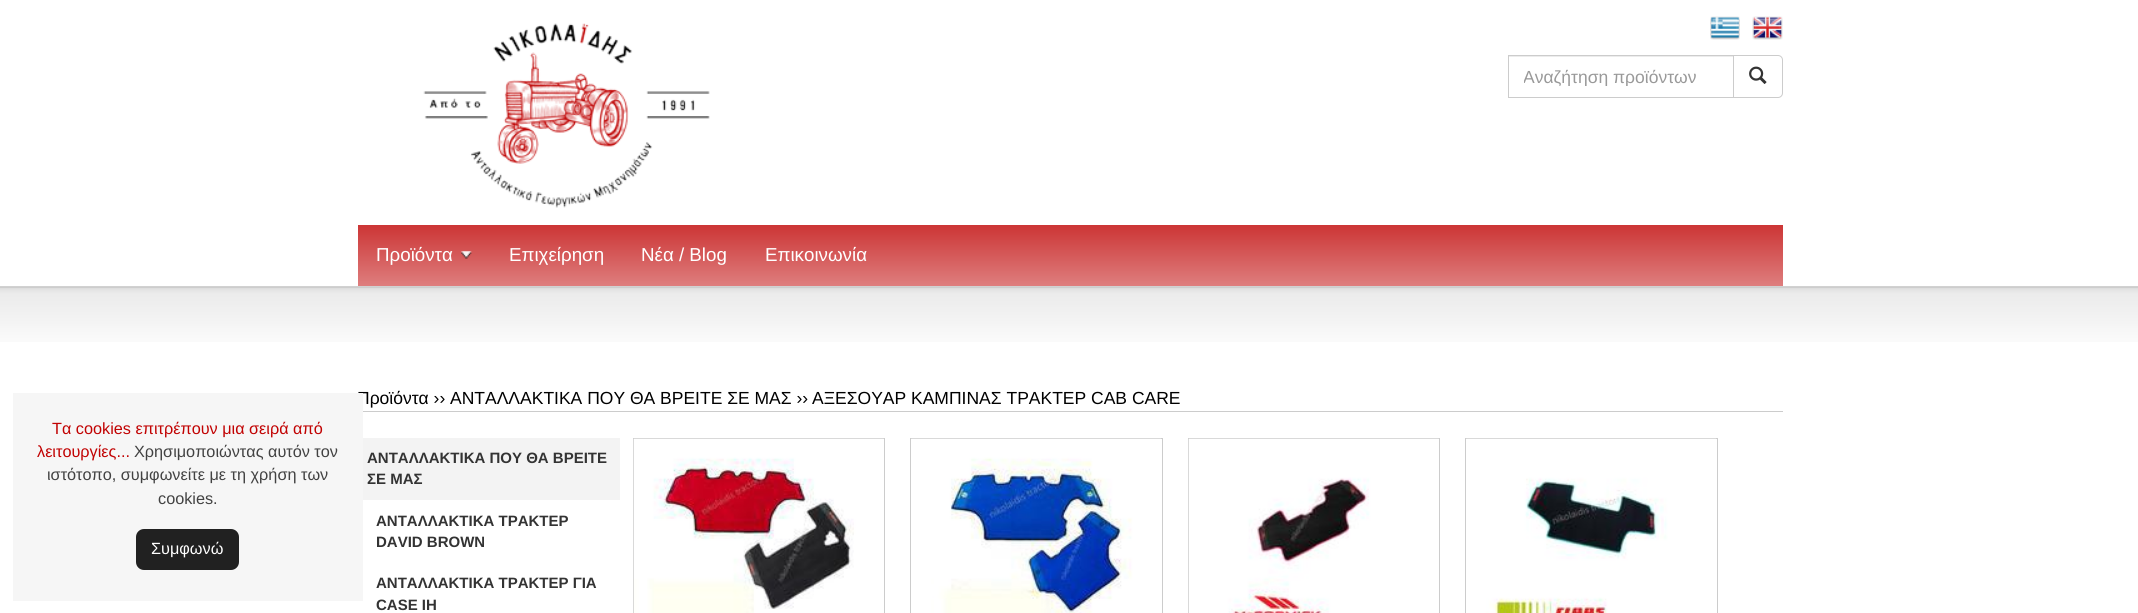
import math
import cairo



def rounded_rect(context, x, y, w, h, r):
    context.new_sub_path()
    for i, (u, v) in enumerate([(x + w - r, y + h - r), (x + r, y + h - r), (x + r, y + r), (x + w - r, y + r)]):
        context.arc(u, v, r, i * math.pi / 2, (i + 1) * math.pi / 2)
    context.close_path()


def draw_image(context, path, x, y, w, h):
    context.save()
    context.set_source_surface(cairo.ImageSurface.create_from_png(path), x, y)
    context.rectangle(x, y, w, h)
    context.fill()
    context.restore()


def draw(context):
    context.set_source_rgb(1, 1, 1)
    context.paint()
    draw_image(context, "images/1.png", 423, 23, 287, 185)
    draw_image(context, "images/2.png", 1710, 16, 30, 24)
    draw_image(context, "images/3.png", 1752, 16, 31, 24)
    context.set_source_rgb(236 / 255, 236 / 255, 236 / 255)
    context.rectangle(1509, 56, 224, 1)
    context.fill()
    context.rectangle(1508.5, 55.5, 225, 42)
    context.set_source_rgb(204 / 255, 204 / 255, 204 / 255)
    context.set_line_width(1)
    context.stroke()
    context.set_source_rgb(1, 1, 1)
    context.new_path()
    context.move_to(1733.5, 55.5)
    context.line_to(1778, 55.5)
    context.curve_to(1780.5, 55.5, 1782.5, 57.5, 1782.5, 60)
    context.line_to(1782.5, 93)
    context.curve_to(1782.5, 95.5, 1780.5, 97.5, 1778, 97.5)
    context.line_to(1733.5, 97.5)
    context.close_path()
    context.fill_preserve()
    context.set_source_rgb(204 / 255, 204 / 255, 204 / 255)
    context.stroke()
    draw_image(context, "images/4.png", 1749, 66, 18, 18)
    gradient = cairo.LinearGradient(1070, 225, 1070, 286)
    gradient.add_color_stop_rgba(0, 204 / 255, 53 / 255, 53 / 255, 1)
    gradient.add_color_stop_rgba(1, 222 / 255, 126 / 255, 126 / 255, 1)
    context.set_source(gradient)
    context.rectangle(358, 225, 1425, 61)
    context.fill()
    draw_image(context, "images/5.png", 461, 251, 11, 8)
    draw_image(context, "images/6.png", 0, 286, 2138, 56)
    context.set_source_rgb(204 / 255, 204 / 255, 204 / 255)
    context.rectangle(358, 411, 1425, 1)
    context.fill()
    context.set_source_rgb(243 / 255, 243 / 255, 243 / 255)
    context.rectangle(363, 438, 257, 62)
    context.fill()
    context.rectangle(633.5, 438.5, 251, 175)
    context.set_source_rgb(204 / 255, 204 / 255, 204 / 255)
    context.stroke()
    draw_image(context, "images/7.png", 633, 438, 251, 175)
    context.rectangle(910.5, 438.5, 252, 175)
    context.stroke()
    draw_image(context, "images/8.png", 911, 438, 250, 175)
    context.rectangle(1188.5, 438.5, 251, 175)
    context.stroke()
    draw_image(context, "images/9.png", 1188, 438, 251, 175)
    context.rectangle(1465.5, 438.5, 252, 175)
    context.stroke()
    draw_image(context, "images/10.png", 1466, 438, 250, 175)
    context.save()
    context.rectangle(1524, 66, 194, 20)
    context.clip()
    context.select_font_face("Liberation Sans")
    context.set_font_size(17.5)
    context.set_source_rgb(153 / 255, 153 / 255, 153 / 255)
    context.move_to(1523, 83)
    context.show_text("Αναζήτηση προϊόντων")
    context.restore()
    context.select_font_face("Liberation Sans")
    context.set_font_size(18.75)
    context.set_source_rgb(1, 1, 1)
    context.move_to(376, 261)
    context.show_text("Προϊόντα")
    context.move_to(509, 261)
    context.show_text("Επιχείρηση")
    context.move_to(641, 261)
    context.show_text("Νέα / Blog")
    context.move_to(765, 261)
    context.show_text("Επικοινωνία")
    context.set_font_size(17.5)
    context.set_source_rgb(0, 0, 0)
    context.move_to(357, 404)
    context.show_text("Προϊόντα ››")
    context.set_source_rgb(246 / 255, 246 / 255, 246 / 255)
    context.rectangle(13, 393, 350, 208)
    context.fill()
    context.set_source_rgb(33 / 255, 33 / 255, 33 / 255)
    rounded_rect(context, 136, 529, 103, 41, 8)
    context.fill()
    context.set_font_size(16.25)
    context.set_source_rgb(1, 1, 1)
    context.move_to(151, 554)
    context.show_text("Συμφωνώ")
    context.set_source_rgb(66 / 255, 66 / 255, 66 / 255)
    context.move_to(158, 504)
    context.show_text("cookies.")
    context.move_to(47, 480)
    context.show_text("ιστότοπο, συμφωνείτε με τη χρήση των")
    context.move_to(134, 457)
    context.show_text("Χρησιμοποιώντας αυτόν τον")
    context.set_source_rgb(193 / 255, 2 / 255, 2 / 255)
    context.move_to(37, 457)
    context.show_text("λειτουργίες...")
    context.move_to(52, 434)
    context.show_text("Τα cookies επιτρέπουν μια σειρά από")
    context.set_font_size(17.5)
    context.set_source_rgb(0, 0, 0)
    context.move_to(450, 404)
    context.show_text("ΑΝΤΑΛΛΑΚΤΙΚΑ ΠΟΥ ΘΑ ΒΡΕΙΤΕ ΣΕ ΜΑΣ ››")
    context.move_to(812, 404)
    context.show_text("ΑΞΕΣΟΥΑΡ ΚΑΜΠΙΝΑΣ ΤΡΑΚΤΕΡ CAB CARE")
    context.select_font_face("Liberation Sans", cairo.FontSlant.NORMAL, cairo.FontWeight.BOLD)
    context.set_font_size(15)
    context.set_source_rgb(51 / 255, 51 / 255, 51 / 255)
    context.move_to(367, 463)
    context.show_text("ΑΝΤΑΛΛΑΚΤΙΚΑ ΠΟΥ ΘΑ ΒΡΕΙΤΕ")
    context.move_to(367, 484)
    context.show_text("ΣΕ ΜΑΣ")
    context.move_to(376, 526)
    context.show_text("ΑΝΤΑΛΛΑΚΤΙΚΑ ΤΡΑΚΤΕΡ")
    context.move_to(376, 547)
    context.show_text("DAVID BROWN")
    context.move_to(376, 588)
    context.show_text("ΑΝΤΑΛΛΑΚΤΙΚΑ ΤΡΑΚΤΕΡ ΓΙΑ")
    context.move_to(376, 610)
    context.show_text("CASE IH")


surface = cairo.ImageSurface(cairo.Format.RGB24, 2138, 613)
context = cairo.Context(surface)
options = cairo.FontOptions()
options.set_hint_metrics(cairo.HintMetrics.OFF)
options.set_hint_style(cairo.HintStyle.NONE)
context.set_font_options(options)
context.set_miter_limit(4)
draw(context)
surface.write_to_png("out.png")
